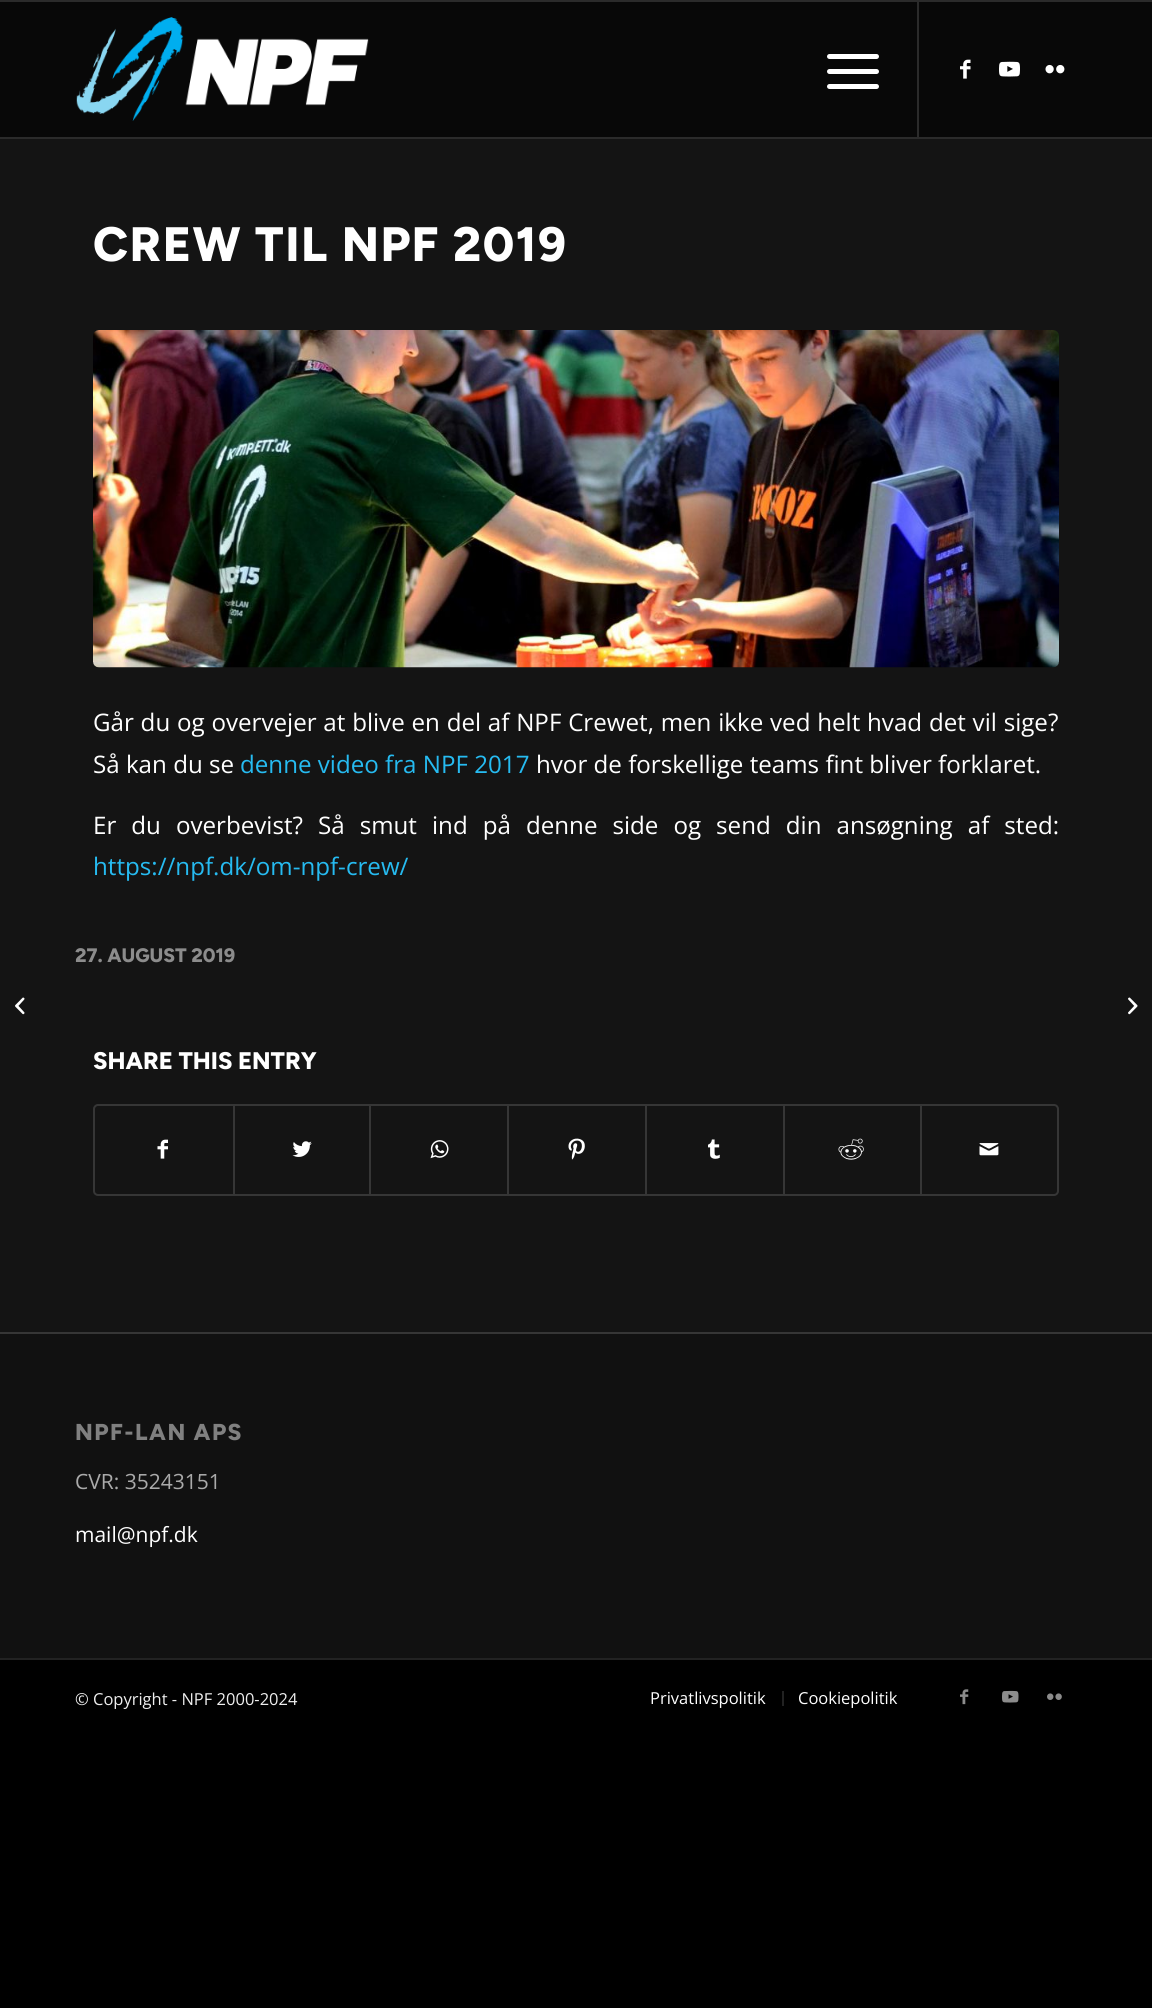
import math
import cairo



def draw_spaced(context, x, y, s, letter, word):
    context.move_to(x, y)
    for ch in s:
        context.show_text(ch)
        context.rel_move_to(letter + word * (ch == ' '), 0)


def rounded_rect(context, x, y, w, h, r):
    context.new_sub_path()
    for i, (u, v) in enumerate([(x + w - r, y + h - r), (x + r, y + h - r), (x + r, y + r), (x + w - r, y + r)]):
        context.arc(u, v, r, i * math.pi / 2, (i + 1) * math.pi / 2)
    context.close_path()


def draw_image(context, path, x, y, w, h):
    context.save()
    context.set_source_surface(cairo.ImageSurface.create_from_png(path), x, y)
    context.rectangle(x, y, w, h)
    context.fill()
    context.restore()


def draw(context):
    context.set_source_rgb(0, 0, 0)
    context.paint()
    context.set_source_rgb(43 / 255, 43 / 255, 43 / 255)
    context.rectangle(0, 0, 1152, 2)
    context.fill()
    context.rectangle(0, 137, 1152, 2)
    context.fill()
    context.set_source_rgb(8 / 255, 8 / 255, 8 / 255)
    context.rectangle(0, 2, 1152, 135)
    context.fill()
    draw_image(context, "images/1.png", 76, 17, 293, 104)
    context.set_source_rgb(43 / 255, 43 / 255, 43 / 255)
    context.rectangle(917, 2, 2, 135)
    context.fill()
    context.set_source_rgb(1, 1, 1)
    rounded_rect(context, 827, 69, 52, 5, 2.5)
    context.fill()
    rounded_rect(context, 827, 54, 52, 5, 2.5)
    context.fill()
    rounded_rect(context, 827, 84, 52, 5, 2.5)
    context.fill()
    draw_image(context, "images/2.png", 960, 59, 11, 20)
    draw_image(context, "images/3.png", 999, 61, 21, 16)
    draw_image(context, "images/4.png", 1045, 64, 20, 10)
    context.set_source_rgb(20 / 255, 20 / 255, 20 / 255)
    context.rectangle(0, 139, 1152, 1193)
    context.fill()
    draw_image(context, "images/5.png", 15, 997, 10, 18)
    draw_image(context, "images/6.png", 93, 330, 966, 338)
    rounded_rect(context, 94, 1105, 964, 90, 4)
    context.set_source_rgb(54 / 255, 54 / 255, 54 / 255)
    context.stroke()
    draw_image(context, "images/7.png", 157, 1139, 11, 20)
    context.rectangle(233, 1106, 2, 88)
    context.fill()
    draw_image(context, "images/8.png", 292, 1141, 20, 16)
    context.rectangle(369, 1106, 2, 88)
    context.fill()
    draw_image(context, "images/9.png", 430, 1140, 19, 19)
    context.rectangle(507, 1106, 2, 88)
    context.fill()
    draw_image(context, "images/10.png", 568, 1138, 17, 22)
    context.rectangle(645, 1106, 2, 88)
    context.fill()
    draw_image(context, "images/11.png", 708, 1139, 12, 20)
    context.rectangle(783, 1106, 2, 88)
    context.fill()
    draw_image(context, "images/12.png", 838, 1138, 26, 22)
    context.rectangle(920, 1106, 2, 88)
    context.fill()
    draw_image(context, "images/13.png", 979, 1143, 20, 13)
    context.set_source_rgb(17 / 255, 17 / 255, 17 / 255)
    context.rectangle(0, 1334, 1152, 324)
    context.fill()
    context.set_source_rgb(54 / 255, 54 / 255, 54 / 255)
    context.rectangle(0, 1332, 1152, 2)
    context.fill()
    context.set_source_rgb(34 / 255, 34 / 255, 34 / 255)
    context.rectangle(0, 1658, 1152, 2)
    context.fill()
    context.rectangle(782, 1691, 2, 15)
    context.fill()
    draw_image(context, "images/14.png", 960, 1689, 9, 16)
    draw_image(context, "images/15.png", 1002, 1690, 17, 13)
    draw_image(context, "images/16.png", 1047, 1693, 15, 7)
    draw_image(context, "images/17.png", 1128, 997, 10, 18)
    context.select_font_face("Figtree ExtraBold")
    context.set_font_size(48.25)
    context.set_source_rgb(1, 1, 1)
    draw_spaced(context, 93, 261, "CREW TIL NPF 2019", 1.5, 0)
    context.select_font_face("Open Sans")
    context.set_font_size(24.15)
    draw_spaced(context, 93, 731, "Går du og overvejer at blive en del af NPF Crewet, men ikke ved helt hvad det vil sige?", 0, 0.5)
    context.move_to(93, 773)
    context.show_text("Så kan du se")
    context.set_source_rgb(38 / 255, 187 / 255, 241 / 255)
    context.move_to(240, 773)
    context.show_text("denne video fra NPF 2017")
    context.set_source_rgb(1, 1, 1)
    context.move_to(536, 773)
    context.show_text("hvor de forskellige teams fint bliver forklaret.")
    draw_spaced(context, 93, 834, "Er du overbevist? Så smut ind på denne side og send din ansøgning af sted:", 0, 8.75)
    context.set_source_rgb(38 / 255, 187 / 255, 241 / 255)
    context.move_to(93, 875)
    context.show_text("https://npf.dk/om-npf-crew/")
    context.select_font_face("Figtree ExtraBold")
    context.set_font_size(19.5)
    context.set_source_rgb(140 / 255, 140 / 255, 140 / 255)
    context.move_to(75, 962)
    context.show_text("27. AUGUST 2019")
    context.set_font_size(24)
    context.set_source_rgb(1, 1, 1)
    context.move_to(93, 1069)
    context.show_text("SHARE THIS ENTRY")
    context.set_font_size(23)
    context.set_source_rgb(128 / 255, 128 / 255, 128 / 255)
    draw_spaced(context, 75, 1440, "NPF-LAN APS", 1.5, 0)
    context.select_font_face("Open Sans")
    context.set_font_size(21)
    context.set_source_rgb(170 / 255, 170 / 255, 170 / 255)
    context.move_to(75, 1489)
    context.show_text("CVR: 35243151")
    context.set_source_rgb(1, 1, 1)
    context.move_to(75, 1542)
    context.show_text("mail@npf.dk")
    context.set_font_size(16.5)
    context.set_source_rgb(238 / 255, 238 / 255, 238 / 255)
    context.move_to(75, 1705)
    context.show_text("© Copyright - NPF 2000-2024")
    context.set_source_rgb(1, 1, 1)
    context.move_to(650, 1704)
    context.show_text("Privatlivspolitik")
    context.move_to(798, 1704)
    context.show_text("Cookiepolitik")


surface = cairo.ImageSurface(cairo.Format.RGB24, 1152, 2008)
context = cairo.Context(surface)
options = cairo.FontOptions()
options.set_hint_metrics(cairo.HintMetrics.OFF)
options.set_hint_style(cairo.HintStyle.NONE)
context.set_font_options(options)
context.set_miter_limit(4)
draw(context)
surface.write_to_png("out.png")
